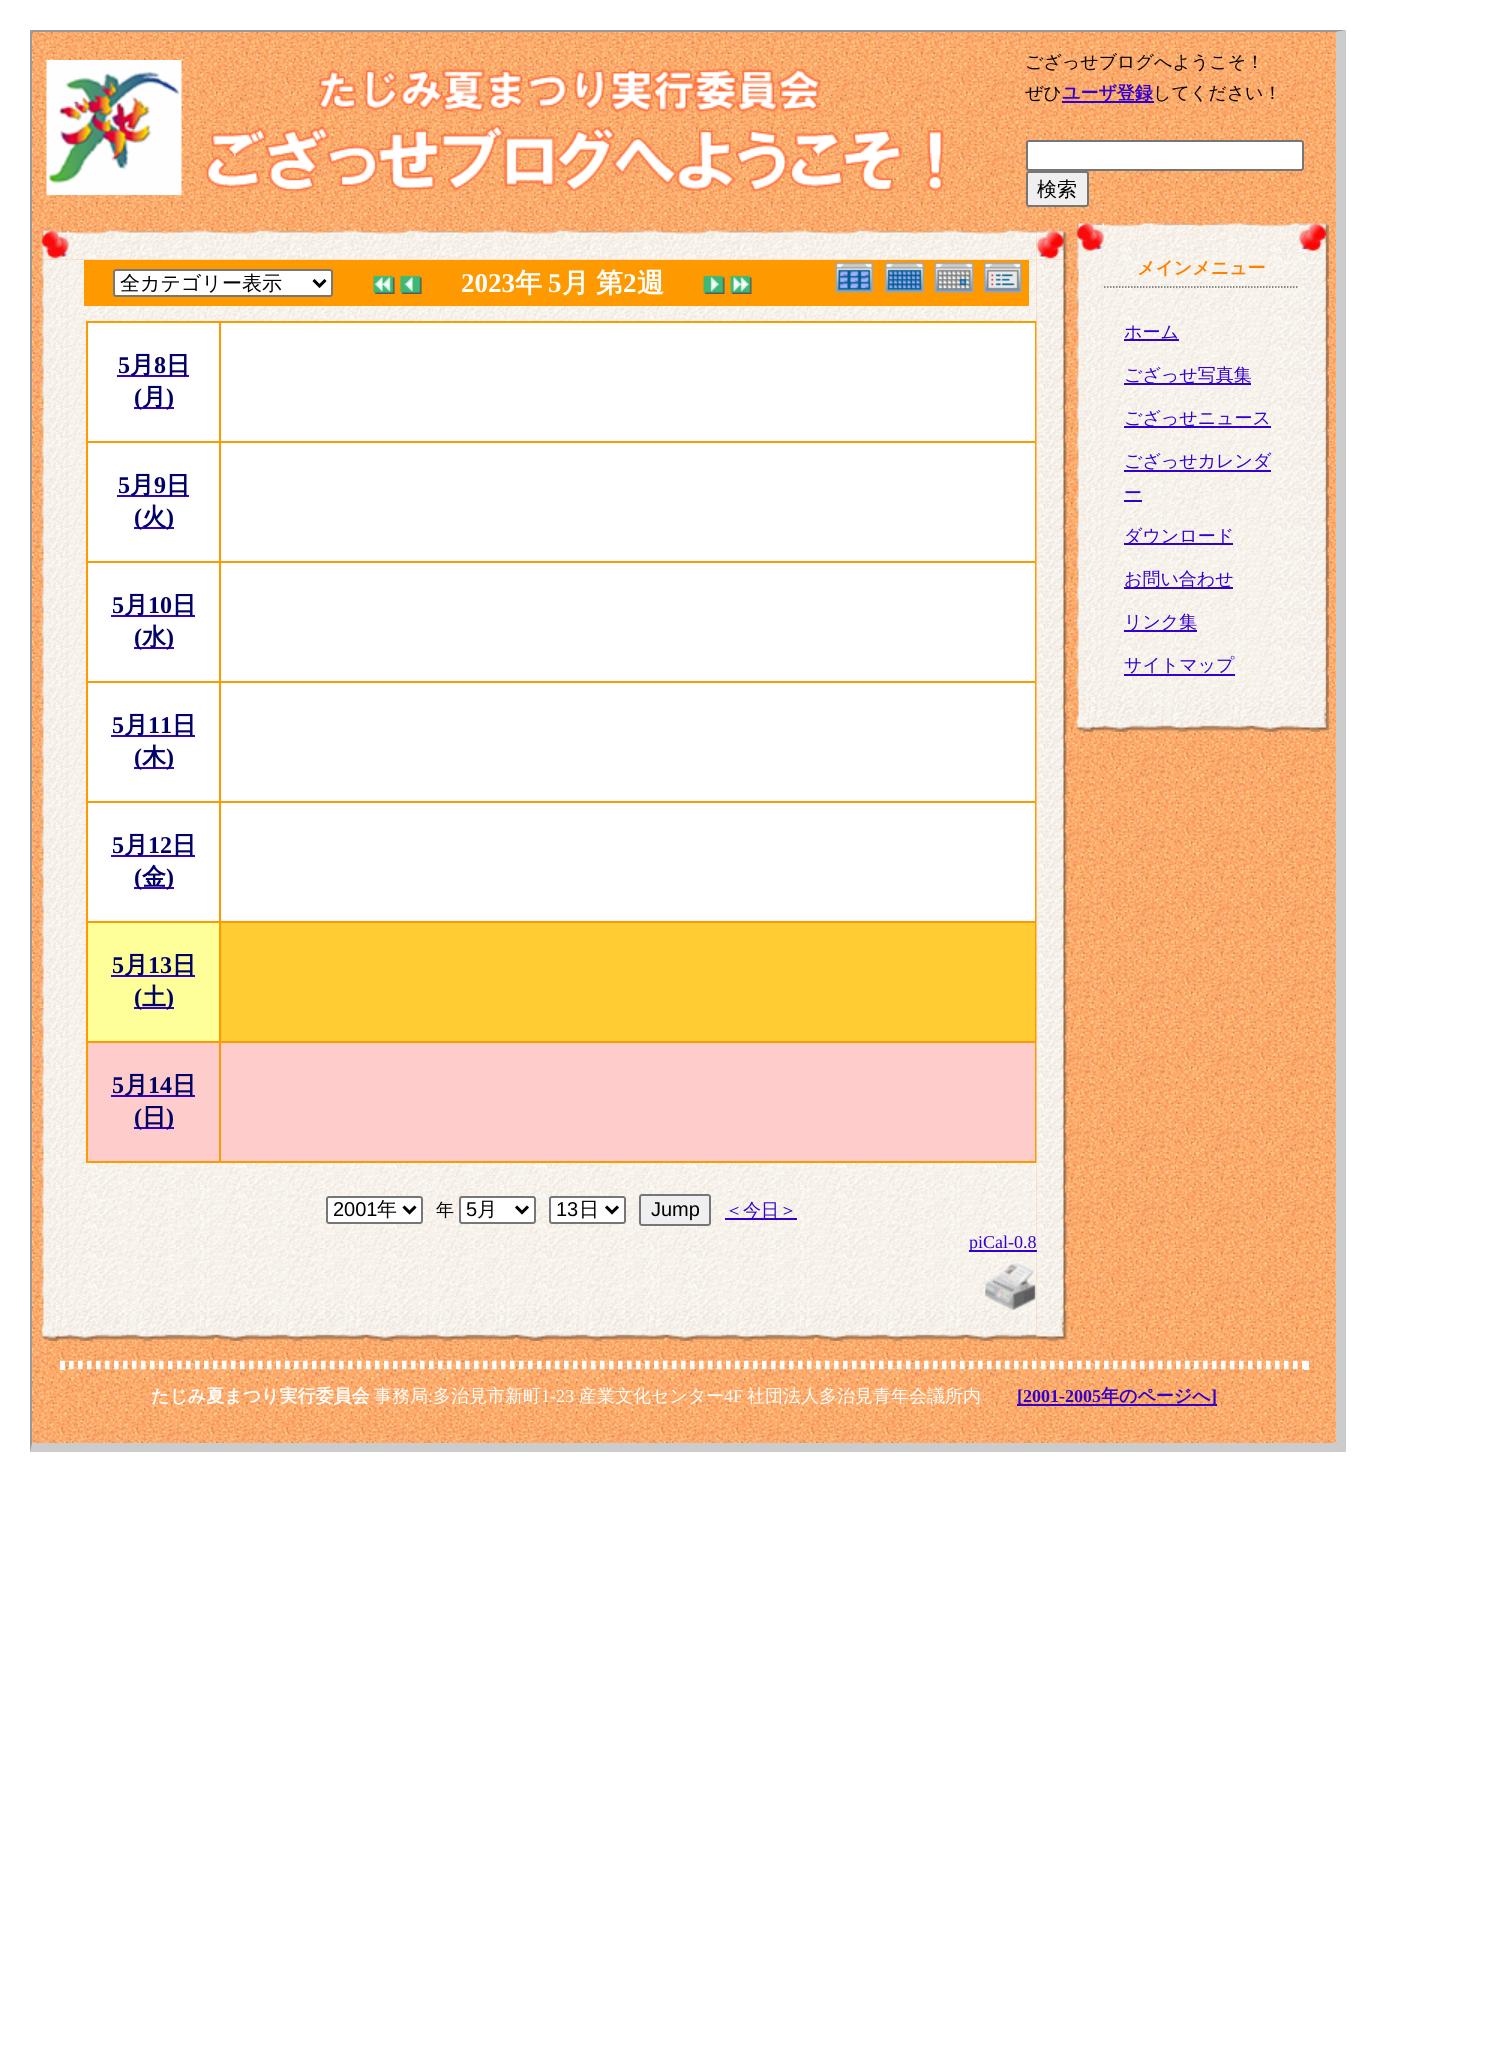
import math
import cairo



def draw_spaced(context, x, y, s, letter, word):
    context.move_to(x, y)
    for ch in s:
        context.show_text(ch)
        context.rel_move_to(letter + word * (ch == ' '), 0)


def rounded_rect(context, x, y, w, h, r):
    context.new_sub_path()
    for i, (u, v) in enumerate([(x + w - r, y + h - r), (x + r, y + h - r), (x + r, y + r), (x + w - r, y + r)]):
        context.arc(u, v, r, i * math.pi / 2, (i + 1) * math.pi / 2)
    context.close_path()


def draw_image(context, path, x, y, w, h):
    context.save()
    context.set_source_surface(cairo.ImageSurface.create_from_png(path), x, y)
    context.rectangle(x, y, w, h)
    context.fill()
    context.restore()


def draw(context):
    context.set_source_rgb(1, 1, 1)
    context.paint()
    draw_image(context, "images/1.png", 30, 30, 1316, 1422)
    context.set_source_rgb(153 / 255, 153 / 255, 153 / 255)
    context.new_path()
    context.move_to(30, 30)
    context.line_to(1346, 30)
    context.line_to(1336, 32)
    context.line_to(32, 32)
    context.close_path()
    context.fill()
    context.set_source_rgb(204 / 255, 204 / 255, 204 / 255)
    context.new_path()
    context.move_to(1346, 30)
    context.line_to(1346, 1452)
    context.line_to(1336, 1443)
    context.line_to(1336, 32)
    context.close_path()
    context.fill()
    context.new_path()
    context.move_to(1346, 1452)
    context.line_to(30, 1452)
    context.line_to(32, 1443)
    context.line_to(1336, 1443)
    context.close_path()
    context.fill()
    context.set_source_rgb(153 / 255, 153 / 255, 153 / 255)
    context.new_path()
    context.move_to(30, 1452)
    context.line_to(30, 30)
    context.line_to(32, 32)
    context.line_to(32, 1443)
    context.close_path()
    context.fill()
    draw_image(context, "images/2.png", 46, 60, 898, 135)
    context.set_source_rgb(51 / 255, 0, 204 / 255)
    context.rectangle(1062, 101, 92, 2)
    context.fill()
    context.set_source_rgb(1, 1, 1)
    rounded_rect(context, 1027, 141, 276, 29, 2)
    context.fill_preserve()
    context.set_source_rgb(118 / 255, 118 / 255, 118 / 255)
    context.stroke()
    context.set_source_rgb(239 / 255, 239 / 255, 239 / 255)
    rounded_rect(context, 1027, 172, 61, 34, 2)
    context.fill_preserve()
    context.set_source_rgb(118 / 255, 118 / 255, 118 / 255)
    context.stroke()
    draw_image(context, "images/6.png", 41, 259, 28, 1052)
    draw_image(context, "images/3.png", 41, 230, 28, 30)
    draw_image(context, "images/4.png", 69, 229, 968, 31)
    draw_image(context, "images/7.png", 69, 259, 968, 1052)
    context.set_source_rgb(1, 153 / 255, 0)
    context.rectangle(219, 321, 818, 2)
    context.fill()
    context.rectangle(219, 441, 818, 2)
    context.fill()
    context.rectangle(219, 561, 818, 2)
    context.fill()
    context.rectangle(219, 681, 818, 2)
    context.fill()
    context.rectangle(219, 801, 818, 2)
    context.fill()
    context.rectangle(219, 921, 818, 2)
    context.fill()
    context.rectangle(219, 1041, 818, 2)
    context.fill()
    context.rectangle(1035, 1041, 2, 122)
    context.fill()
    context.rectangle(1035, 921, 2, 122)
    context.fill()
    context.rectangle(1035, 801, 2, 122)
    context.fill()
    context.rectangle(1035, 681, 2, 122)
    context.fill()
    context.rectangle(1035, 561, 2, 122)
    context.fill()
    context.rectangle(1035, 441, 2, 122)
    context.fill()
    context.rectangle(1035, 321, 2, 122)
    context.fill()
    context.rectangle(219, 1161, 818, 2)
    context.fill()
    draw_image(context, "images/17.png", 1036, 259, 31, 1052)
    draw_image(context, "images/5.png", 1036, 230, 31, 30)
    context.rectangle(84, 260, 945, 46)
    context.fill()
    context.set_source_rgb(1, 1, 1)
    rounded_rect(context, 114, 270, 218, 26, 2)
    context.fill_preserve()
    context.set_source_rgb(118 / 255, 118 / 255, 118 / 255)
    context.stroke()
    context.new_path()
    context.move_to(313.5, 280)
    context.line_to(319.5, 286)
    context.line_to(325.5, 280)
    context.set_source_rgb(0, 0, 0)
    context.set_line_width(3)
    context.stroke()
    draw_image(context, "images/8.png", 373, 275, 22, 19)
    draw_image(context, "images/9.png", 400, 275, 22, 19)
    draw_image(context, "images/10.png", 703, 275, 22, 19)
    draw_image(context, "images/11.png", 730, 275, 22, 19)
    draw_image(context, "images/12.png", 835, 262, 39, 31)
    draw_image(context, "images/13.png", 885, 262, 40, 31)
    draw_image(context, "images/14.png", 934, 262, 40, 31)
    draw_image(context, "images/15.png", 984, 262, 38, 31)
    context.set_source_rgb(1, 1, 1)
    context.rectangle(88, 323, 131, 118)
    context.fill()
    context.set_source_rgb(1, 153 / 255, 0)
    context.rectangle(219, 1041, 2, 122)
    context.fill()
    context.rectangle(86, 1041, 135, 2)
    context.fill()
    context.rectangle(219, 921, 2, 122)
    context.fill()
    context.rectangle(86, 921, 135, 2)
    context.fill()
    context.rectangle(219, 801, 2, 122)
    context.fill()
    context.rectangle(86, 801, 135, 2)
    context.fill()
    context.rectangle(219, 681, 2, 122)
    context.fill()
    context.rectangle(86, 681, 135, 2)
    context.fill()
    context.rectangle(219, 561, 2, 122)
    context.fill()
    context.rectangle(86, 561, 135, 2)
    context.fill()
    context.rectangle(219, 441, 2, 122)
    context.fill()
    context.rectangle(86, 441, 135, 2)
    context.fill()
    context.rectangle(219, 321, 2, 122)
    context.fill()
    context.rectangle(86, 321, 135, 2)
    context.fill()
    context.rectangle(86, 1161, 135, 2)
    context.fill()
    context.rectangle(86, 1041, 2, 122)
    context.fill()
    context.rectangle(86, 921, 2, 122)
    context.fill()
    context.rectangle(86, 801, 2, 122)
    context.fill()
    context.rectangle(86, 681, 2, 122)
    context.fill()
    context.rectangle(86, 561, 2, 122)
    context.fill()
    context.rectangle(86, 441, 2, 122)
    context.fill()
    context.rectangle(86, 321, 2, 122)
    context.fill()
    context.set_source_rgb(51 / 255, 0, 204 / 255)
    context.rectangle(117, 375, 72, 2)
    context.fill()
    context.rectangle(134, 407, 40, 2)
    context.fill()
    context.set_source_rgb(1, 1, 1)
    context.rectangle(221, 323, 814, 118)
    context.fill()
    context.rectangle(88, 443, 131, 118)
    context.fill()
    context.set_source_rgb(51 / 255, 0, 204 / 255)
    context.rectangle(117, 495, 72, 2)
    context.fill()
    context.rectangle(134, 527, 40, 2)
    context.fill()
    context.set_source_rgb(1, 1, 1)
    context.rectangle(221, 443, 814, 118)
    context.fill()
    context.rectangle(88, 563, 131, 118)
    context.fill()
    context.set_source_rgb(51 / 255, 0, 204 / 255)
    context.rectangle(111, 615, 84, 2)
    context.fill()
    context.rectangle(134, 647, 40, 2)
    context.fill()
    context.set_source_rgb(1, 1, 1)
    context.rectangle(221, 563, 814, 118)
    context.fill()
    context.rectangle(88, 683, 131, 118)
    context.fill()
    context.set_source_rgb(51 / 255, 0, 204 / 255)
    context.rectangle(111, 735, 84, 2)
    context.fill()
    context.rectangle(134, 767, 40, 2)
    context.fill()
    context.set_source_rgb(1, 1, 1)
    context.rectangle(221, 683, 814, 118)
    context.fill()
    context.rectangle(88, 803, 131, 118)
    context.fill()
    context.set_source_rgb(51 / 255, 0, 204 / 255)
    context.rectangle(111, 855, 84, 2)
    context.fill()
    context.rectangle(134, 887, 40, 2)
    context.fill()
    context.set_source_rgb(1, 1, 1)
    context.rectangle(221, 803, 814, 118)
    context.fill()
    context.set_source_rgb(1, 1, 153 / 255)
    context.rectangle(88, 923, 131, 118)
    context.fill()
    context.set_source_rgb(51 / 255, 0, 204 / 255)
    context.rectangle(111, 975, 84, 2)
    context.fill()
    context.rectangle(134, 1007, 40, 2)
    context.fill()
    context.set_source_rgb(1, 204 / 255, 51 / 255)
    context.rectangle(221, 923, 814, 118)
    context.fill()
    context.set_source_rgb(1, 204 / 255, 204 / 255)
    context.rectangle(88, 1043, 131, 118)
    context.fill()
    context.set_source_rgb(51 / 255, 0, 204 / 255)
    context.rectangle(111, 1095, 84, 2)
    context.fill()
    context.rectangle(134, 1127, 40, 2)
    context.fill()
    context.set_source_rgb(1, 204 / 255, 204 / 255)
    context.rectangle(221, 1043, 814, 118)
    context.fill()
    context.set_source_rgb(1, 1, 1)
    rounded_rect(context, 327, 1197, 95, 26, 2)
    context.fill_preserve()
    context.set_source_rgb(118 / 255, 118 / 255, 118 / 255)
    context.set_line_width(2)
    context.stroke()
    context.new_path()
    context.move_to(403.5, 1206.5)
    context.line_to(409.5, 1212.5)
    context.line_to(415.5, 1206.5)
    context.set_source_rgb(0, 0, 0)
    context.set_line_width(3)
    context.stroke()
    context.set_source_rgb(1, 1, 1)
    rounded_rect(context, 460, 1197, 75, 26, 2)
    context.fill_preserve()
    context.set_source_rgb(118 / 255, 118 / 255, 118 / 255)
    context.set_line_width(2)
    context.stroke()
    context.new_path()
    context.move_to(516, 1206.5)
    context.line_to(522, 1212.5)
    context.line_to(528, 1206.5)
    context.set_source_rgb(0, 0, 0)
    context.set_line_width(3)
    context.stroke()
    context.set_source_rgb(1, 1, 1)
    rounded_rect(context, 550, 1197, 75, 26, 2)
    context.fill_preserve()
    context.set_source_rgb(118 / 255, 118 / 255, 118 / 255)
    context.set_line_width(2)
    context.stroke()
    context.new_path()
    context.move_to(606, 1206.5)
    context.line_to(612, 1212.5)
    context.line_to(618, 1206.5)
    context.set_source_rgb(0, 0, 0)
    context.set_line_width(3)
    context.stroke()
    context.set_source_rgb(239 / 255, 239 / 255, 239 / 255)
    rounded_rect(context, 640, 1195, 70, 30, 2)
    context.fill_preserve()
    context.set_source_rgb(118 / 255, 118 / 255, 118 / 255)
    context.set_line_width(2)
    context.stroke()
    context.set_source_rgb(51 / 255, 0, 204 / 255)
    context.rectangle(725, 1218, 72, 2)
    context.fill()
    context.rectangle(969, 1250, 68, 2)
    context.fill()
    draw_image(context, "images/16.png", 985, 1261, 51, 49)
    draw_image(context, "images/18.png", 41, 1311, 28, 30)
    draw_image(context, "images/19.png", 69, 1311, 968, 30)
    draw_image(context, "images/20.png", 1036, 1311, 31, 30)
    draw_image(context, "images/21.png", 1076, 223, 28, 29)
    draw_image(context, "images/22.png", 1104, 222, 195, 30)
    draw_image(context, "images/23.png", 1299, 223, 30, 29)
    draw_image(context, "images/24.png", 1076, 252, 28, 450)
    draw_image(context, "images/25.png", 1104, 252, 195, 450)
    context.new_path()
    context.move_to(1104, 287)
    context.line_to(1299, 287)
    context.set_source_rgb(102 / 255, 102 / 255, 102 / 255)
    context.set_line_width(1.5)
    context.set_dash([1.5, 1.5])
    context.stroke()
    context.set_source_rgb(51 / 255, 0, 204 / 255)
    context.rectangle(1124, 339, 55, 2)
    context.fill()
    context.rectangle(1124, 383, 127, 2)
    context.fill()
    context.rectangle(1124, 426, 147, 2)
    context.fill()
    context.rectangle(1124, 470, 147, 2)
    context.fill()
    context.rectangle(1124, 500, 18, 2)
    context.fill()
    context.rectangle(1124, 543, 109, 2)
    context.fill()
    context.rectangle(1124, 587, 109, 2)
    context.fill()
    context.rectangle(1124, 630, 73, 2)
    context.fill()
    context.rectangle(1124, 674, 111, 2)
    context.fill()
    draw_image(context, "images/26.png", 1299, 252, 30, 450)
    draw_image(context, "images/27.png", 1076, 702, 28, 30)
    draw_image(context, "images/28.png", 1104, 702, 195, 30)
    draw_image(context, "images/29.png", 1299, 702, 30, 30)
    context.new_path()
    context.move_to(60, 1363)
    context.line_to(1308, 1363)
    context.set_source_rgb(1, 1, 1)
    context.set_line_width(4.5)
    context.set_dash([4.5, 4.5])
    context.stroke()
    context.rectangle(1304, 1361, 5, 9)
    context.fill()
    context.new_path()
    context.move_to(60, 1367)
    context.line_to(1308, 1367)
    context.stroke()
    context.rectangle(60, 1361, 5, 9)
    context.fill()
    context.set_source_rgb(51 / 255, 0, 204 / 255)
    context.rectangle(1017, 1404, 200, 2)
    context.fill()
    context.select_font_face("WenQuanYi Zen Hei Medium")
    context.set_font_size(18)
    context.set_source_rgb(0, 0, 0)
    context.move_to(1025, 68)
    context.show_text("ござっせブログへようこそ！")
    context.move_to(1025, 99)
    context.show_text("ぜひ")
    context.select_font_face("WenQuanYi Zen Hei", cairo.FontSlant.NORMAL, cairo.FontWeight.BOLD)
    context.set_source_rgb(51 / 255, 0, 204 / 255)
    context.move_to(1062, 99)
    context.show_text("ユーザ登録")
    context.select_font_face("WenQuanYi Zen Hei Medium")
    context.set_source_rgb(0, 0, 0)
    context.move_to(1153, 99)
    context.show_text("してください！")
    context.set_font_size(20)
    context.move_to(1037, 196)
    context.show_text("検索")
    context.move_to(120, 290)
    context.show_text("全カテゴリー表示")
    context.select_font_face("Liberation Serif", cairo.FontSlant.NORMAL, cairo.FontWeight.BOLD)
    context.set_font_size(27)
    context.set_source_rgb(1, 1, 1)
    context.move_to(461, 292)
    context.show_text("2023")
    context.select_font_face("WenQuanYi Zen Hei", cairo.FontSlant.NORMAL, cairo.FontWeight.BOLD)
    context.move_to(515, 292)
    context.show_text("年")
    context.select_font_face("Liberation Serif", cairo.FontSlant.NORMAL, cairo.FontWeight.BOLD)
    context.move_to(548, 292)
    context.show_text("5")
    context.select_font_face("WenQuanYi Zen Hei", cairo.FontSlant.NORMAL, cairo.FontWeight.BOLD)
    draw_spaced(context, 562, 292, "月 第", 0, -1)
    context.select_font_face("Liberation Serif", cairo.FontSlant.NORMAL, cairo.FontWeight.BOLD)
    context.move_to(623, 292)
    context.show_text("2")
    context.select_font_face("WenQuanYi Zen Hei", cairo.FontSlant.NORMAL, cairo.FontWeight.BOLD)
    context.move_to(637, 292)
    context.show_text("週")
    context.select_font_face("Liberation Serif", cairo.FontSlant.NORMAL, cairo.FontWeight.BOLD)
    context.set_font_size(24)
    context.set_source_rgb(0, 0, 102 / 255)
    context.move_to(118, 373)
    context.show_text("5")
    context.select_font_face("WenQuanYi Zen Hei", cairo.FontSlant.NORMAL, cairo.FontWeight.BOLD)
    context.move_to(130, 373)
    context.show_text("月")
    context.select_font_face("Liberation Serif", cairo.FontSlant.NORMAL, cairo.FontWeight.BOLD)
    context.move_to(154, 373)
    context.show_text("8")
    context.select_font_face("WenQuanYi Zen Hei", cairo.FontSlant.NORMAL, cairo.FontWeight.BOLD)
    context.move_to(166, 373)
    context.show_text("日")
    context.select_font_face("Liberation Serif", cairo.FontSlant.NORMAL, cairo.FontWeight.BOLD)
    context.move_to(134, 405)
    context.show_text("(")
    context.select_font_face("WenQuanYi Zen Hei", cairo.FontSlant.NORMAL, cairo.FontWeight.BOLD)
    context.move_to(142, 405)
    context.show_text("月")
    context.select_font_face("Liberation Serif", cairo.FontSlant.NORMAL, cairo.FontWeight.BOLD)
    context.move_to(166, 405)
    context.show_text(")")
    context.move_to(118, 493)
    context.show_text("5")
    context.select_font_face("WenQuanYi Zen Hei", cairo.FontSlant.NORMAL, cairo.FontWeight.BOLD)
    context.move_to(130, 493)
    context.show_text("月")
    context.select_font_face("Liberation Serif", cairo.FontSlant.NORMAL, cairo.FontWeight.BOLD)
    context.move_to(154, 493)
    context.show_text("9")
    context.select_font_face("WenQuanYi Zen Hei", cairo.FontSlant.NORMAL, cairo.FontWeight.BOLD)
    context.move_to(166, 493)
    context.show_text("日")
    context.select_font_face("Liberation Serif", cairo.FontSlant.NORMAL, cairo.FontWeight.BOLD)
    context.move_to(134, 525)
    context.show_text("(")
    context.select_font_face("WenQuanYi Zen Hei", cairo.FontSlant.NORMAL, cairo.FontWeight.BOLD)
    context.move_to(142, 525)
    context.show_text("火")
    context.select_font_face("Liberation Serif", cairo.FontSlant.NORMAL, cairo.FontWeight.BOLD)
    context.move_to(166, 525)
    context.show_text(")")
    context.move_to(112, 613)
    context.show_text("5")
    context.select_font_face("WenQuanYi Zen Hei", cairo.FontSlant.NORMAL, cairo.FontWeight.BOLD)
    context.move_to(124, 613)
    context.show_text("月")
    context.select_font_face("Liberation Serif", cairo.FontSlant.NORMAL, cairo.FontWeight.BOLD)
    context.move_to(148, 613)
    context.show_text("10")
    context.select_font_face("WenQuanYi Zen Hei", cairo.FontSlant.NORMAL, cairo.FontWeight.BOLD)
    context.move_to(172, 613)
    context.show_text("日")
    context.select_font_face("Liberation Serif", cairo.FontSlant.NORMAL, cairo.FontWeight.BOLD)
    context.move_to(134, 645)
    context.show_text("(")
    context.select_font_face("WenQuanYi Zen Hei", cairo.FontSlant.NORMAL, cairo.FontWeight.BOLD)
    context.move_to(142, 645)
    context.show_text("水")
    context.select_font_face("Liberation Serif", cairo.FontSlant.NORMAL, cairo.FontWeight.BOLD)
    context.move_to(166, 645)
    context.show_text(")")
    context.move_to(112, 733)
    context.show_text("5")
    context.select_font_face("WenQuanYi Zen Hei", cairo.FontSlant.NORMAL, cairo.FontWeight.BOLD)
    context.move_to(124, 733)
    context.show_text("月")
    context.select_font_face("Liberation Serif", cairo.FontSlant.NORMAL, cairo.FontWeight.BOLD)
    context.move_to(148, 733)
    context.show_text("11")
    context.select_font_face("WenQuanYi Zen Hei", cairo.FontSlant.NORMAL, cairo.FontWeight.BOLD)
    context.move_to(172, 733)
    context.show_text("日")
    context.select_font_face("Liberation Serif", cairo.FontSlant.NORMAL, cairo.FontWeight.BOLD)
    context.move_to(134, 765)
    context.show_text("(")
    context.select_font_face("WenQuanYi Zen Hei", cairo.FontSlant.NORMAL, cairo.FontWeight.BOLD)
    context.move_to(142, 765)
    context.show_text("木")
    context.select_font_face("Liberation Serif", cairo.FontSlant.NORMAL, cairo.FontWeight.BOLD)
    context.move_to(166, 765)
    context.show_text(")")
    context.move_to(112, 853)
    context.show_text("5")
    context.select_font_face("WenQuanYi Zen Hei", cairo.FontSlant.NORMAL, cairo.FontWeight.BOLD)
    context.move_to(124, 853)
    context.show_text("月")
    context.select_font_face("Liberation Serif", cairo.FontSlant.NORMAL, cairo.FontWeight.BOLD)
    context.move_to(148, 853)
    context.show_text("12")
    context.select_font_face("WenQuanYi Zen Hei", cairo.FontSlant.NORMAL, cairo.FontWeight.BOLD)
    context.move_to(172, 853)
    context.show_text("日")
    context.select_font_face("Liberation Serif", cairo.FontSlant.NORMAL, cairo.FontWeight.BOLD)
    context.move_to(134, 885)
    context.show_text("(")
    context.select_font_face("WenQuanYi Zen Hei", cairo.FontSlant.NORMAL, cairo.FontWeight.BOLD)
    context.move_to(142, 885)
    context.show_text("金")
    context.select_font_face("Liberation Serif", cairo.FontSlant.NORMAL, cairo.FontWeight.BOLD)
    context.move_to(166, 885)
    context.show_text(")")
    context.move_to(112, 973)
    context.show_text("5")
    context.select_font_face("WenQuanYi Zen Hei", cairo.FontSlant.NORMAL, cairo.FontWeight.BOLD)
    context.move_to(124, 973)
    context.show_text("月")
    context.select_font_face("Liberation Serif", cairo.FontSlant.NORMAL, cairo.FontWeight.BOLD)
    context.move_to(148, 973)
    context.show_text("13")
    context.select_font_face("WenQuanYi Zen Hei", cairo.FontSlant.NORMAL, cairo.FontWeight.BOLD)
    context.move_to(172, 973)
    context.show_text("日")
    context.select_font_face("Liberation Serif", cairo.FontSlant.NORMAL, cairo.FontWeight.BOLD)
    context.move_to(134, 1005)
    context.show_text("(")
    context.select_font_face("WenQuanYi Zen Hei", cairo.FontSlant.NORMAL, cairo.FontWeight.BOLD)
    context.move_to(142, 1005)
    context.show_text("土")
    context.select_font_face("Liberation Serif", cairo.FontSlant.NORMAL, cairo.FontWeight.BOLD)
    context.move_to(166, 1005)
    context.show_text(")")
    context.move_to(112, 1093)
    context.show_text("5")
    context.select_font_face("WenQuanYi Zen Hei", cairo.FontSlant.NORMAL, cairo.FontWeight.BOLD)
    context.move_to(124, 1093)
    context.show_text("月")
    context.select_font_face("Liberation Serif", cairo.FontSlant.NORMAL, cairo.FontWeight.BOLD)
    context.move_to(148, 1093)
    context.show_text("14")
    context.select_font_face("WenQuanYi Zen Hei", cairo.FontSlant.NORMAL, cairo.FontWeight.BOLD)
    context.move_to(172, 1093)
    context.show_text("日")
    context.select_font_face("Liberation Serif", cairo.FontSlant.NORMAL, cairo.FontWeight.BOLD)
    context.move_to(134, 1125)
    context.show_text("(")
    context.select_font_face("WenQuanYi Zen Hei", cairo.FontSlant.NORMAL, cairo.FontWeight.BOLD)
    context.move_to(142, 1125)
    context.show_text("日")
    context.select_font_face("Liberation Serif", cairo.FontSlant.NORMAL, cairo.FontWeight.BOLD)
    context.move_to(166, 1125)
    context.show_text(")")
    context.select_font_face("Liberation Sans")
    context.set_font_size(20)
    context.set_source_rgb(0, 0, 0)
    context.move_to(333, 1216)
    context.show_text("2001")
    context.select_font_face("WenQuanYi Zen Hei Medium")
    context.move_to(377, 1216)
    context.show_text("年")
    context.set_font_size(18)
    context.move_to(436, 1216)
    context.show_text("年")
    context.select_font_face("Liberation Sans")
    context.set_font_size(20)
    context.move_to(466, 1216)
    context.show_text("5")
    context.select_font_face("WenQuanYi Zen Hei Medium")
    context.move_to(477, 1216)
    context.show_text("月")
    context.select_font_face("Liberation Sans")
    context.move_to(556, 1216)
    context.show_text("13")
    context.select_font_face("WenQuanYi Zen Hei Medium")
    context.move_to(579, 1216)
    context.show_text("日")
    context.select_font_face("Liberation Sans")
    context.move_to(651, 1216)
    context.show_text("Jump")
    context.select_font_face("WenQuanYi Zen Hei Medium")
    context.set_font_size(18)
    context.set_source_rgb(51 / 255, 0, 204 / 255)
    context.move_to(725, 1216)
    context.show_text("＜今日＞")
    context.select_font_face("Liberation Serif")
    context.move_to(969, 1248)
    context.show_text("piCal-0.8")
    context.select_font_face("WenQuanYi Zen Hei", cairo.FontSlant.NORMAL, cairo.FontWeight.BOLD)
    context.set_source_rgb(1, 128 / 255, 0)
    context.move_to(1137, 274)
    context.show_text("メインメニュー")
    context.select_font_face("WenQuanYi Zen Hei Medium")
    context.set_source_rgb(51 / 255, 0, 204 / 255)
    context.move_to(1124, 338)
    context.show_text("ホーム")
    context.move_to(1124, 381)
    context.show_text("ござっせ写真集")
    context.move_to(1124, 424)
    context.show_text("ござっせニュース")
    context.move_to(1124, 467)
    context.show_text("ござっせカレンダ")
    context.move_to(1124, 499)
    context.show_text("ー")
    context.move_to(1124, 542)
    context.show_text("ダウンロード")
    context.move_to(1124, 585)
    context.show_text("お問い合わせ")
    context.move_to(1124, 628)
    context.show_text("リンク集")
    context.move_to(1124, 671)
    context.show_text("サイトマップ")
    context.select_font_face("WenQuanYi Zen Hei", cairo.FontSlant.NORMAL, cairo.FontWeight.BOLD)
    context.set_source_rgb(1, 1, 1)
    context.move_to(151, 1402)
    context.show_text("たじみ夏まつり実行委員会")
    context.select_font_face("WenQuanYi Zen Hei Medium")
    context.move_to(374, 1402)
    context.show_text("事務局")
    context.select_font_face("Liberation Serif")
    context.move_to(428, 1402)
    context.show_text(":")
    context.select_font_face("WenQuanYi Zen Hei Medium")
    context.move_to(433, 1402)
    context.show_text("多治見市新町")
    context.select_font_face("Liberation Serif")
    context.move_to(541, 1402)
    context.show_text("1-23")
    context.select_font_face("WenQuanYi Zen Hei Medium")
    context.move_to(579, 1402)
    context.show_text("産業文化センター")
    context.select_font_face("Liberation Serif")
    context.move_to(724, 1402)
    context.show_text("4F")
    context.select_font_face("WenQuanYi Zen Hei Medium")
    context.move_to(747, 1402)
    context.show_text("社団法人多治見青年会議所内")
    context.select_font_face("Liberation Serif", cairo.FontSlant.NORMAL, cairo.FontWeight.BOLD)
    context.set_source_rgb(51 / 255, 0, 204 / 255)
    context.move_to(1017, 1402)
    context.show_text("[2001-2005")
    context.select_font_face("WenQuanYi Zen Hei", cairo.FontSlant.NORMAL, cairo.FontWeight.BOLD)
    context.move_to(1101, 1402)
    context.show_text("年のページへ")
    context.select_font_face("Liberation Serif", cairo.FontSlant.NORMAL, cairo.FontWeight.BOLD)
    context.move_to(1211, 1402)
    context.show_text("]")


surface = cairo.ImageSurface(cairo.Format.RGB24, 1510, 2047)
context = cairo.Context(surface)
options = cairo.FontOptions()
options.set_hint_metrics(cairo.HintMetrics.OFF)
options.set_hint_style(cairo.HintStyle.NONE)
context.set_font_options(options)
context.set_miter_limit(4)
draw(context)
surface.write_to_png("out.png")
